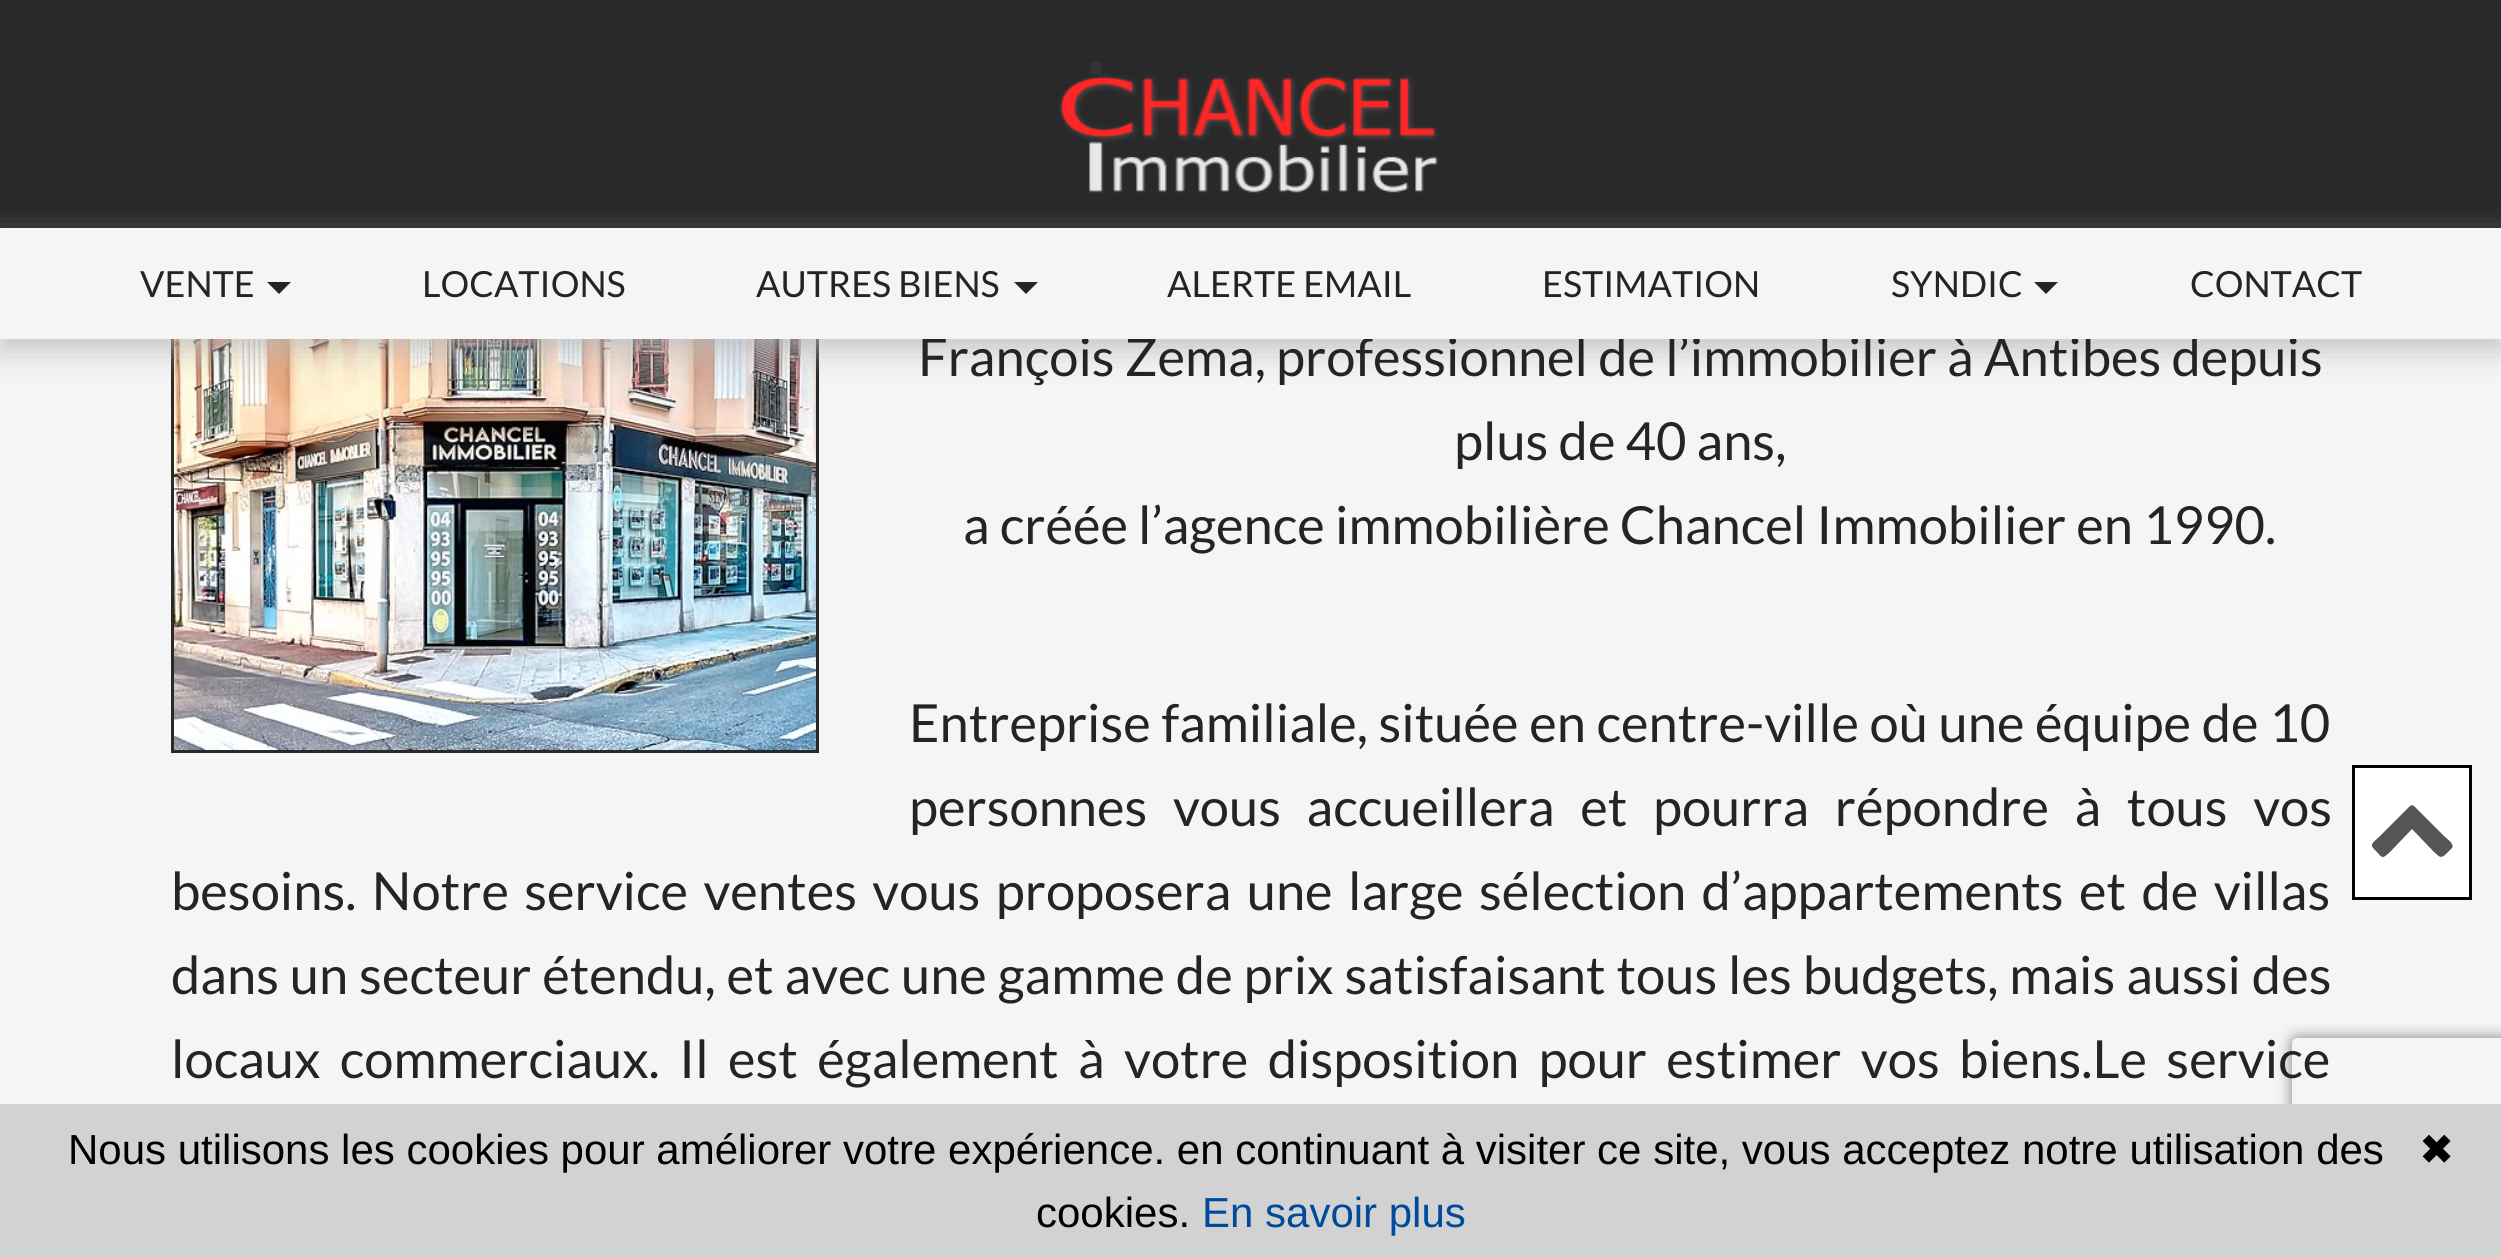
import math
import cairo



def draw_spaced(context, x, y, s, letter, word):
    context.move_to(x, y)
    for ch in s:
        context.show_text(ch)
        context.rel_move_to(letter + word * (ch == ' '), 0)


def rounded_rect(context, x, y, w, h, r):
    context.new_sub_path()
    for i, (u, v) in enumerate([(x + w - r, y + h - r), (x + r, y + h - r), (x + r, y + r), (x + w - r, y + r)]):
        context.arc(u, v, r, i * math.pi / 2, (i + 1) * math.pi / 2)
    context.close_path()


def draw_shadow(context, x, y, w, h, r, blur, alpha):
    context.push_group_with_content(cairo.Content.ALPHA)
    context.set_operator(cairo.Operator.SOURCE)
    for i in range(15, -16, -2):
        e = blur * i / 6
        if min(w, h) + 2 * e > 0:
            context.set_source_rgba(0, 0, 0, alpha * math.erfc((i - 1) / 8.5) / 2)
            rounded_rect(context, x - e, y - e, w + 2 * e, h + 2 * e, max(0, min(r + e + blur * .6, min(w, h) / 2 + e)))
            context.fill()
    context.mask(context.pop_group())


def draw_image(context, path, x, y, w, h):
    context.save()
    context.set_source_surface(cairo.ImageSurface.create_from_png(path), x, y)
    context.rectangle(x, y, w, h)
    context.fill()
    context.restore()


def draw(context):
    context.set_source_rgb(245 / 255, 245 / 255, 245 / 255)
    context.paint()
    context.set_source_rgb(41 / 255, 41 / 255, 41 / 255)
    context.rectangle(0, 0, 2501, 225)
    context.fill()
    context.set_source_rgb(36 / 255, 36 / 255, 36 / 255)
    context.rectangle(0, 225, 2501, 3)
    context.fill()
    draw_image(context, "images/1.png", 1059, 61, 380, 132)
    context.rectangle(172.5, 316.5, 645, 435)
    context.set_source_rgb(41 / 255, 41 / 255, 41 / 255)
    context.set_line_width(3)
    context.stroke()
    draw_image(context, "images/2.png", 174, 339, 642, 411)
    context.set_source_rgb(182 / 255, 182 / 255, 182 / 255)
    draw_shadow(context, 0, 240, 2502, 111, 0, 15, 0.75)
    context.set_source_rgb(1, 1, 1)
    context.rectangle(2353.5, 766.5, 117, 132)
    context.fill_preserve()
    context.set_source_rgb(0, 0, 0)
    context.stroke()
    context.set_source_rgb(85 / 255, 85 / 255, 85 / 255)
    context.new_path()
    context.move_to(2452, 848)
    context.line_to(2445, 855)
    context.curve_to(2440, 859, 2439, 856, 2434, 852)
    context.line_to(2412, 829)
    context.line_to(2390, 852)
    context.curve_to(2381, 860, 2383, 858, 2374, 849)
    context.curve_to(2369, 844, 2374, 842, 2379, 837)
    context.line_to(2404, 812)
    context.curve_to(2413, 803, 2411, 803, 2420, 812)
    context.line_to(2445, 837)
    context.curve_to(2446, 838, 2455, 844, 2452, 848)
    context.close_path()
    context.fill()
    context.save()
    context.set_fill_rule(cairo.FillRule.EVEN_ODD)
    context.new_path()
    context.move_to(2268, 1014)
    context.line_to(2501, 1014)
    context.line_to(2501, 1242)
    context.line_to(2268, 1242)
    context.close_path()
    context.move_to(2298, 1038)
    context.line_to(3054, 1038)
    context.curve_to(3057.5, 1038, 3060, 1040.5, 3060, 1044)
    context.line_to(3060, 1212)
    context.curve_to(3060, 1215.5, 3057.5, 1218, 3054, 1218)
    context.line_to(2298, 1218)
    context.curve_to(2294.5, 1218, 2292, 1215.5, 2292, 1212)
    context.line_to(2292, 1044)
    context.curve_to(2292, 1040.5, 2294.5, 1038, 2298, 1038)
    context.close_path()
    context.clip()
    context.set_source_rgb(128 / 255, 128 / 255, 128 / 255)
    draw_shadow(context, 2292, 1038, 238, 180, 6, 7.5, 1)
    context.restore()
    context.set_source_rgb(210 / 255, 210 / 255, 210 / 255)
    context.rectangle(0, 1104, 2501, 154)
    context.fill()
    context.select_font_face("Lato")
    context.set_font_size(52.5)
    context.set_source_rgb(36 / 255, 36 / 255, 36 / 255)
    context.move_to(918, 376)
    context.show_text("François Zema, professionnel de l’immobilier à Antibes depuis")
    context.set_source_rgb(245 / 255, 245 / 255, 245 / 255)
    context.rectangle(0, 228, 2501, 111)
    context.fill()
    context.set_font_size(36)
    context.set_source_rgb(36 / 255, 36 / 255, 36 / 255)
    context.move_to(2190, 297)
    context.show_text("CONTACT")
    context.new_path()
    context.move_to(2034, 282)
    context.line_to(2058, 282)
    context.line_to(2046, 294)
    context.close_path()
    context.fill()
    context.move_to(1891, 297)
    context.show_text("SYNDIC")
    context.move_to(1542, 297)
    context.show_text("ESTIMATION")
    context.move_to(1167, 297)
    context.show_text("ALERTE EMAIL")
    context.new_path()
    context.move_to(1014, 282)
    context.line_to(1038, 282)
    context.line_to(1026, 294)
    context.close_path()
    context.fill()
    context.move_to(756, 297)
    context.show_text("AUTRES BIENS")
    context.move_to(422, 297)
    context.show_text("LOCATIONS")
    context.new_path()
    context.move_to(267, 282)
    context.line_to(291, 282)
    context.line_to(279, 294)
    context.close_path()
    context.fill()
    context.move_to(140, 297)
    context.show_text("VENTE")
    context.set_font_size(52.5)
    context.move_to(1454, 460)
    context.show_text("plus de 40 ans,")
    context.move_to(963, 544)
    context.show_text("a créée l’agence immobilière Chancel Immobilier en 1990.")
    draw_spaced(context, 909, 742, "Entreprise familiale, située en centre-ville où une équipe de 10", 0, 0.5)
    draw_spaced(context, 909, 826, "personnes vous accueillera et pourra répondre à tous vos", 0, 15.5)
    draw_spaced(context, 171, 910, "besoins. Notre service ventes vous proposera une large sélection d’appartements et de villas", 0, 5.25)
    draw_spaced(context, 171, 994, "dans un secteur étendu, et avec une gamme de prix satisfaisant tous les budgets, mais aussi des", 0, 0.75)
    draw_spaced(context, 171, 1078, "locaux commerciaux. Il est également à votre disposition pour estimer vos biens.Le service", 0, 9.25)
    context.select_font_face("Liberation Sans")
    context.set_font_size(42)
    context.set_source_rgb(0, 0, 0)
    context.move_to(68, 1164)
    context.show_text("Nous utilisons les cookies pour améliorer votre expérience. en continuant à visiter ce site, vous acceptez notre utilisation des")
    context.select_font_face("DejaVu Sans")
    context.move_to(2419, 1164)
    context.show_text("✖")
    context.select_font_face("Liberation Sans")
    context.move_to(1036, 1227)
    context.show_text("cookies.")
    context.set_source_rgb(0, 74 / 255, 156 / 255)
    context.move_to(1202, 1227)
    context.show_text("En savoir plus")


surface = cairo.ImageSurface(cairo.Format.RGB24, 2501, 1258)
context = cairo.Context(surface)
options = cairo.FontOptions()
options.set_hint_metrics(cairo.HintMetrics.OFF)
options.set_hint_style(cairo.HintStyle.NONE)
context.set_font_options(options)
context.set_miter_limit(4)
draw(context)
surface.write_to_png("out.png")
